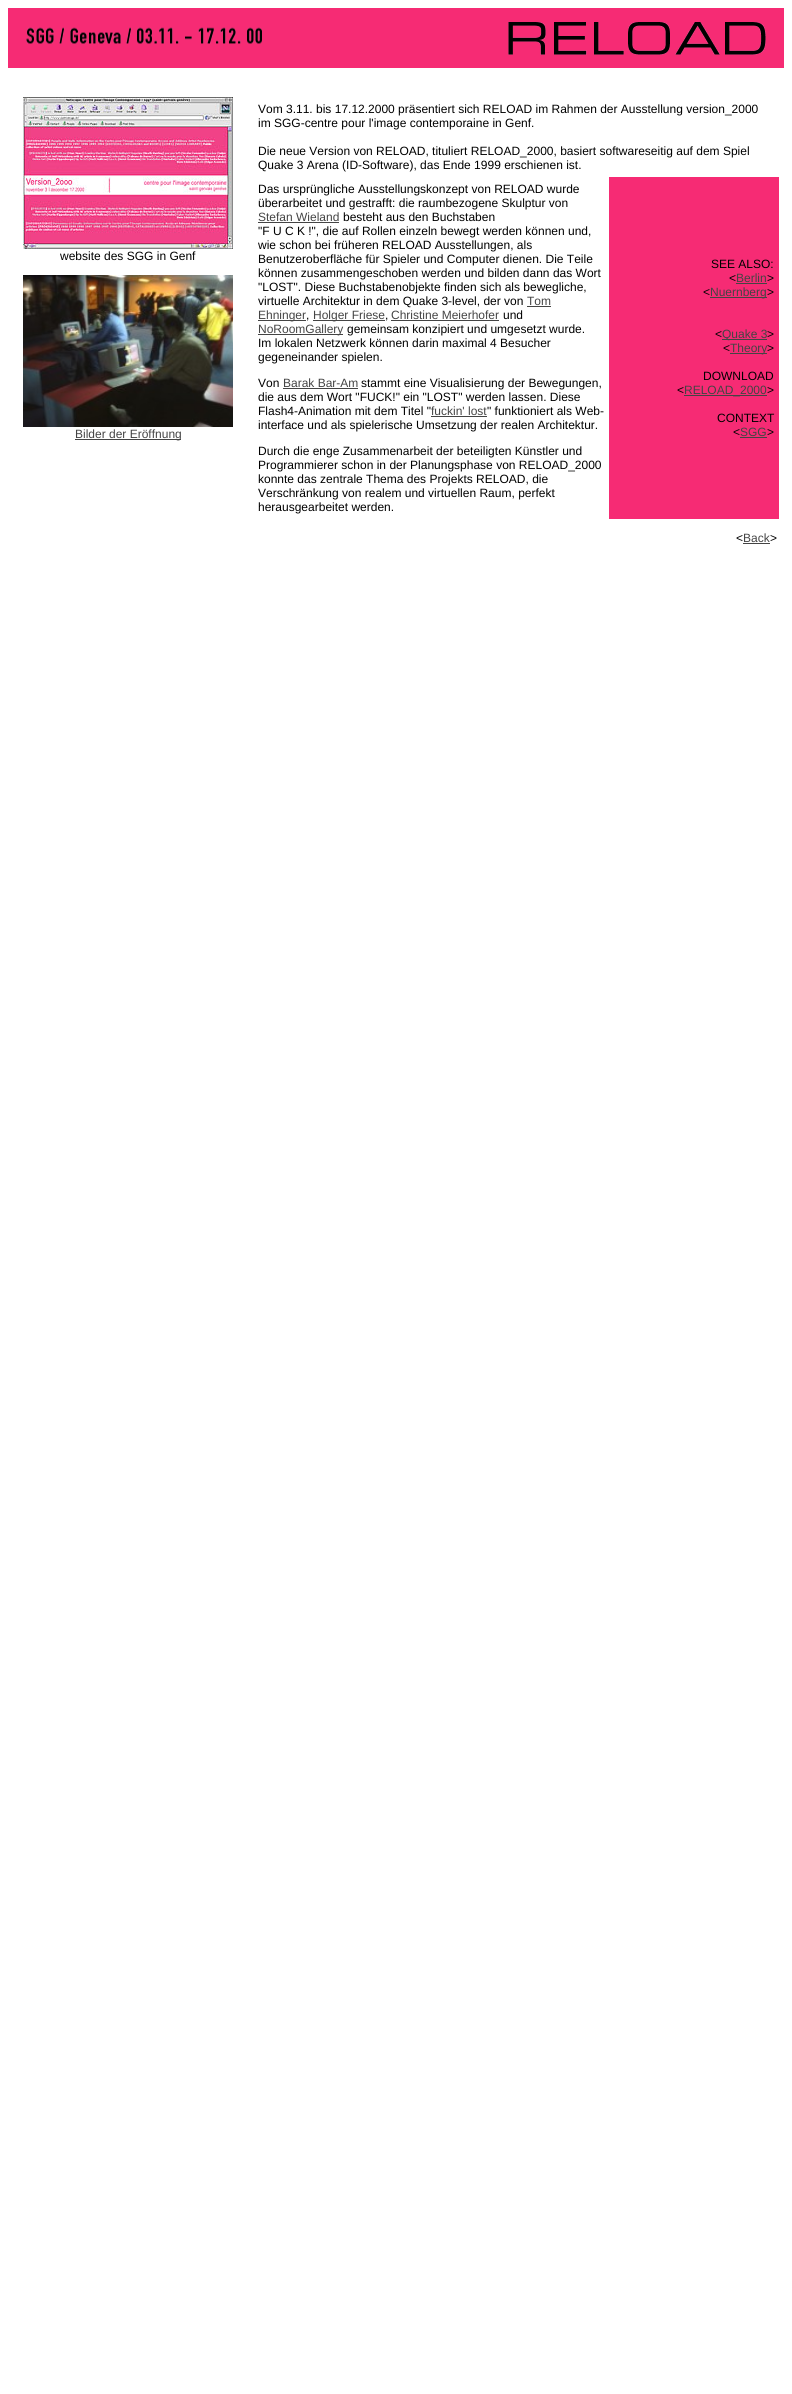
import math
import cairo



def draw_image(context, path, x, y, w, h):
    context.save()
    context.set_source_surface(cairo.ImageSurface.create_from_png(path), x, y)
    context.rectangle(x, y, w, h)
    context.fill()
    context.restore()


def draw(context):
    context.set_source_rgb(1, 1, 1)
    context.paint()
    context.set_source_rgb(246 / 255, 43 / 255, 116 / 255)
    context.rectangle(8, 8, 776, 60)
    context.fill()
    draw_image(context, "images/1.png", 26, 27, 236, 17)
    draw_image(context, "images/2.png", 508, 22, 258, 33)
    draw_image(context, "images/3.png", 23, 97, 210, 152)
    draw_image(context, "images/4.png", 23, 275, 210, 152)
    context.set_source_rgb(68 / 255, 68 / 255, 68 / 255)
    context.rectangle(75, 439, 106, 1)
    context.fill()
    context.rectangle(258, 222, 81, 1)
    context.fill()
    context.rectangle(527, 306, 24, 1)
    context.fill()
    context.rectangle(258, 320, 48, 1)
    context.fill()
    context.rectangle(313, 320, 72, 1)
    context.fill()
    context.rectangle(391, 320, 108, 1)
    context.fill()
    context.rectangle(258, 334, 85, 1)
    context.fill()
    context.rectangle(283, 388, 75, 1)
    context.fill()
    context.rectangle(431, 416, 56, 1)
    context.fill()
    context.set_source_rgb(246 / 255, 43 / 255, 116 / 255)
    context.rectangle(609, 177, 170, 342)
    context.fill()
    context.set_source_rgb(68 / 255, 68 / 255, 68 / 255)
    context.rectangle(736, 283, 31, 1)
    context.fill()
    context.rectangle(710, 297, 57, 1)
    context.fill()
    context.rectangle(722, 339, 45, 1)
    context.fill()
    context.rectangle(730, 353, 37, 1)
    context.fill()
    context.rectangle(684, 395, 83, 1)
    context.fill()
    context.rectangle(740, 437, 27, 1)
    context.fill()
    context.rectangle(743, 543, 27, 1)
    context.fill()
    context.select_font_face("Liberation Sans")
    context.set_font_size(12)
    context.set_source_rgb(0, 0, 0)
    context.move_to(60, 260)
    context.show_text("website des SGG in Genf")
    context.set_source_rgb(68 / 255, 68 / 255, 68 / 255)
    context.move_to(75, 438)
    context.show_text("Bilder der Eröffnung")
    context.set_source_rgb(0, 0, 0)
    context.move_to(258, 113)
    context.show_text("Vom 3.11. bis 17.12.2000 präsentiert sich RELOAD im Rahmen der Ausstellung version_2000")
    context.move_to(258, 127)
    context.show_text("im SGG-centre pour l'image contemporaine in Genf.")
    context.move_to(258, 155)
    context.show_text("Die neue Version von RELOAD, tituliert RELOAD_2000, basiert softwareseitig auf dem Spiel")
    context.move_to(258, 169)
    context.show_text("Quake 3 Arena (ID-Software), das Ende 1999 erschienen ist.")
    context.move_to(258, 193)
    context.show_text("Das ursprüngliche Ausstellungskonzept von RELOAD wurde")
    context.move_to(258, 207)
    context.show_text("überarbeitet und gestrafft: die raumbezogene Skulptur von")
    context.set_source_rgb(68 / 255, 68 / 255, 68 / 255)
    context.move_to(258, 221)
    context.show_text("Stefan Wieland")
    context.set_source_rgb(0, 0, 0)
    context.move_to(343, 221)
    context.show_text("besteht aus den Buchstaben")
    context.move_to(258, 235)
    context.show_text("\"F U C K !\", die auf Rollen einzeln bewegt werden können und,")
    context.move_to(258, 249)
    context.show_text("wie schon bei früheren RELOAD Ausstellungen, als")
    context.move_to(258, 263)
    context.show_text("Benutzeroberfläche für Spieler und Computer dienen. Die Teile")
    context.move_to(258, 277)
    context.show_text("können zusammengeschoben werden und bilden dann das Wort")
    context.move_to(258, 291)
    context.show_text("\"LOST\". Diese Buchstabenobjekte finden sich als bewegliche,")
    context.move_to(258, 305)
    context.show_text("virtuelle Architektur in dem Quake 3-level, der von")
    context.set_source_rgb(68 / 255, 68 / 255, 68 / 255)
    context.move_to(527, 305)
    context.show_text("Tom")
    context.move_to(258, 319)
    context.show_text("Ehninger")
    context.set_source_rgb(0, 0, 0)
    context.move_to(306, 319)
    context.show_text(",")
    context.set_source_rgb(68 / 255, 68 / 255, 68 / 255)
    context.move_to(313, 319)
    context.show_text("Holger Friese")
    context.set_source_rgb(0, 0, 0)
    context.move_to(385, 319)
    context.show_text(",")
    context.set_source_rgb(68 / 255, 68 / 255, 68 / 255)
    context.move_to(391, 319)
    context.show_text("Christine Meierhofer")
    context.set_source_rgb(0, 0, 0)
    context.move_to(503, 319)
    context.show_text("und")
    context.set_source_rgb(68 / 255, 68 / 255, 68 / 255)
    context.move_to(258, 333)
    context.show_text("NoRoomGallery")
    context.set_source_rgb(0, 0, 0)
    context.move_to(347, 333)
    context.show_text("gemeinsam konzipiert und umgesetzt wurde.")
    context.move_to(258, 347)
    context.show_text("Im lokalen Netzwerk können darin maximal 4 Besucher")
    context.move_to(258, 361)
    context.show_text("gegeneinander spielen.")
    context.move_to(258, 387)
    context.show_text("Von")
    context.set_source_rgb(68 / 255, 68 / 255, 68 / 255)
    context.move_to(283, 387)
    context.show_text("Barak Bar-Am")
    context.set_source_rgb(0, 0, 0)
    context.move_to(361, 387)
    context.show_text("stammt eine Visualisierung der Bewegungen,")
    context.move_to(258, 401)
    context.show_text("die aus dem Wort \"FUCK!\" ein \"LOST\" werden lassen. Diese")
    context.move_to(258, 415)
    context.show_text("Flash4-Animation mit dem Titel \"")
    context.set_source_rgb(68 / 255, 68 / 255, 68 / 255)
    context.move_to(431, 415)
    context.show_text("fuckin' lost")
    context.set_source_rgb(0, 0, 0)
    context.move_to(487, 415)
    context.show_text("\" funktioniert als Web-")
    context.move_to(258, 429)
    context.show_text("interface und als spielerische Umsetzung der realen Architektur.")
    context.move_to(258, 455)
    context.show_text("Durch die enge Zusammenarbeit der beteiligten Künstler und")
    context.move_to(258, 469)
    context.show_text("Programmierer schon in der Planungsphase von RELOAD_2000")
    context.move_to(258, 483)
    context.show_text("konnte das zentrale Thema des Projekts RELOAD, die")
    context.move_to(258, 497)
    context.show_text("Verschränkung von realem und virtuellen Raum, perfekt")
    context.move_to(258, 511)
    context.show_text("herausgearbeitet werden.")
    context.move_to(711, 268)
    context.show_text("SEE ALSO:")
    context.move_to(729, 282)
    context.show_text("<")
    context.set_source_rgb(68 / 255, 68 / 255, 68 / 255)
    context.move_to(736, 282)
    context.show_text("Berlin")
    context.set_source_rgb(0, 0, 0)
    context.move_to(767, 282)
    context.show_text(">")
    context.move_to(703, 296)
    context.show_text("<")
    context.set_source_rgb(68 / 255, 68 / 255, 68 / 255)
    context.move_to(710, 296)
    context.show_text("Nuernberg")
    context.set_source_rgb(0, 0, 0)
    context.move_to(767, 296)
    context.show_text(">")
    context.move_to(715, 338)
    context.show_text("<")
    context.set_source_rgb(68 / 255, 68 / 255, 68 / 255)
    context.move_to(722, 338)
    context.show_text("Quake 3")
    context.set_source_rgb(0, 0, 0)
    context.move_to(767, 338)
    context.show_text(">")
    context.move_to(723, 352)
    context.show_text("<")
    context.set_source_rgb(68 / 255, 68 / 255, 68 / 255)
    context.move_to(730, 352)
    context.show_text("Theory")
    context.set_source_rgb(0, 0, 0)
    context.move_to(767, 352)
    context.show_text(">")
    context.move_to(703, 380)
    context.show_text("DOWNLOAD")
    context.move_to(677, 394)
    context.show_text("<")
    context.set_source_rgb(68 / 255, 68 / 255, 68 / 255)
    context.move_to(684, 394)
    context.show_text("RELOAD_2000")
    context.set_source_rgb(0, 0, 0)
    context.move_to(767, 394)
    context.show_text(">")
    context.move_to(717, 422)
    context.show_text("CONTEXT")
    context.move_to(733, 436)
    context.show_text("<")
    context.set_source_rgb(68 / 255, 68 / 255, 68 / 255)
    context.move_to(740, 436)
    context.show_text("SGG")
    context.set_source_rgb(0, 0, 0)
    context.move_to(767, 436)
    context.show_text(">")
    context.move_to(736, 542)
    context.show_text("<")
    context.set_source_rgb(68 / 255, 68 / 255, 68 / 255)
    context.move_to(743, 542)
    context.show_text("Back")
    context.set_source_rgb(0, 0, 0)
    context.move_to(770, 542)
    context.show_text(">")


surface = cairo.ImageSurface(cairo.Format.RGB24, 792, 2394)
context = cairo.Context(surface)
options = cairo.FontOptions()
options.set_hint_metrics(cairo.HintMetrics.OFF)
options.set_hint_style(cairo.HintStyle.NONE)
context.set_font_options(options)
context.set_miter_limit(4)
draw(context)
surface.write_to_png("out.png")
